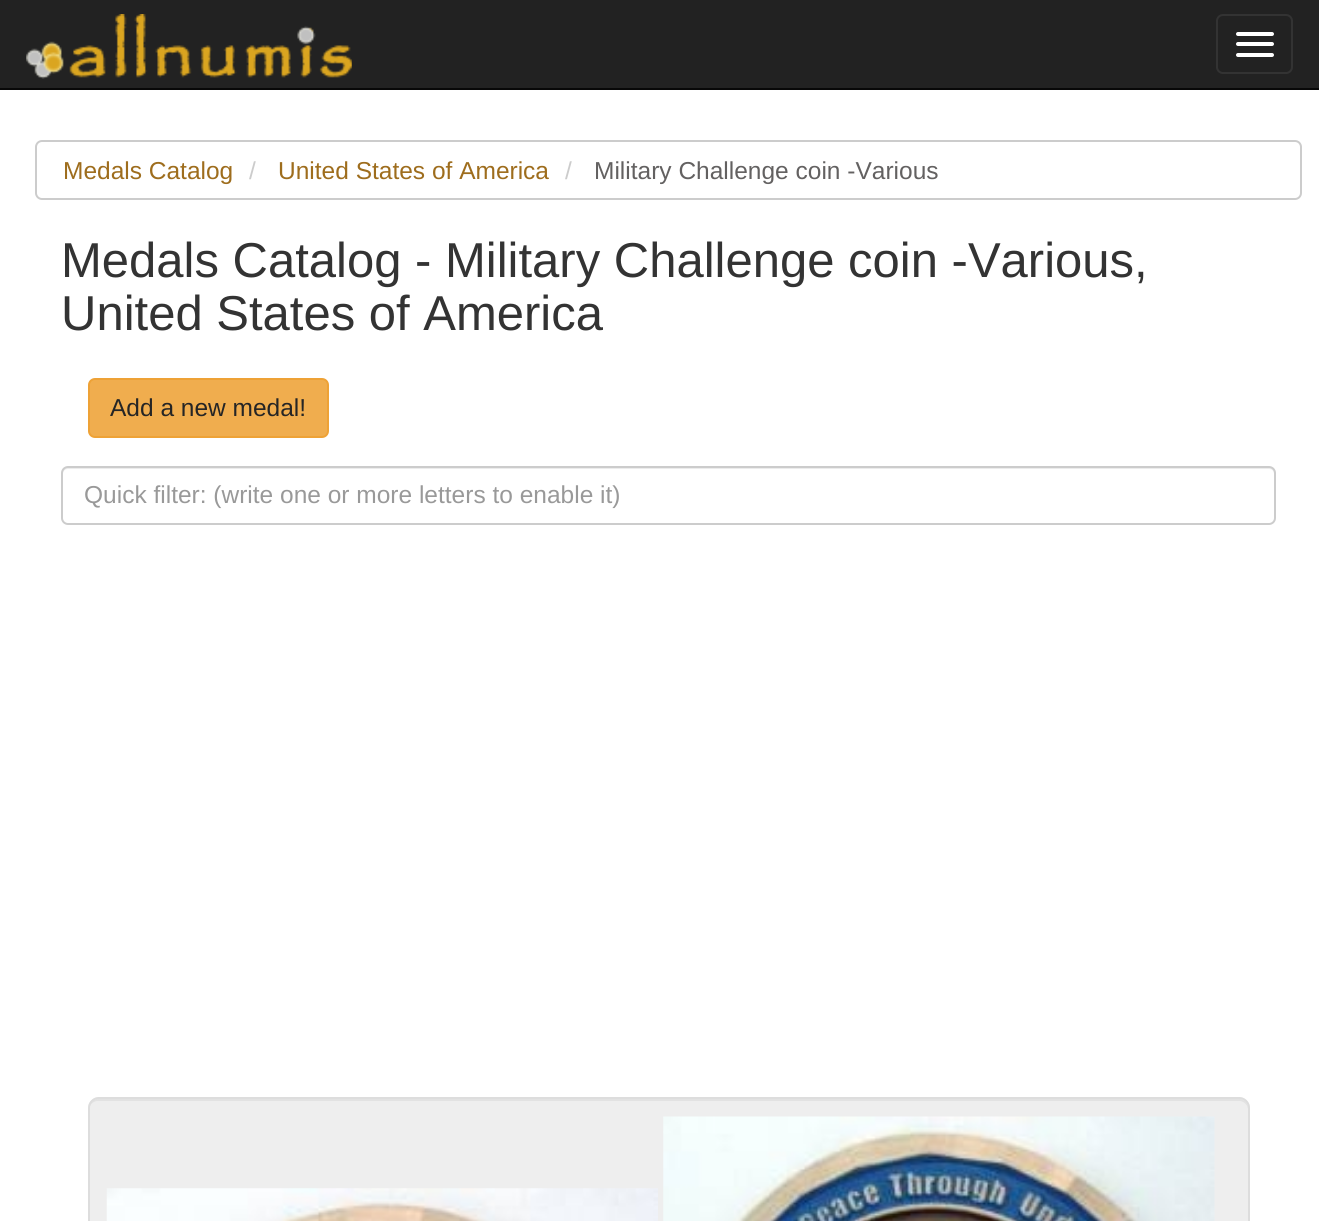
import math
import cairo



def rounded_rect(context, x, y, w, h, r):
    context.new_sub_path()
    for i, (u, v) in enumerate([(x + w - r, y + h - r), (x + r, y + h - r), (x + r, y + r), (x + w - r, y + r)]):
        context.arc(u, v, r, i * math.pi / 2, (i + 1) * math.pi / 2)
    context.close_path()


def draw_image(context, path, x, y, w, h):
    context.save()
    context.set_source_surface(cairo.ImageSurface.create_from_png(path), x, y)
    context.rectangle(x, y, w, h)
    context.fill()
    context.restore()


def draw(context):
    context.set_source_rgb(1, 1, 1)
    context.paint()
    context.set_source_rgb(34 / 255, 34 / 255, 34 / 255)
    context.rectangle(0, 0, 1319, 88)
    context.fill()
    context.set_source_rgb(8 / 255, 8 / 255, 8 / 255)
    context.rectangle(0, 88, 1319, 2)
    context.fill()
    draw_image(context, "images/1.png", 26, 14, 326, 65)
    rounded_rect(context, 1217, 15, 75, 58, 6)
    context.set_source_rgb(51 / 255, 51 / 255, 51 / 255)
    context.stroke()
    context.set_source_rgb(1, 1, 1)
    rounded_rect(context, 1236, 32, 38, 4, 2)
    context.fill()
    rounded_rect(context, 1236, 42, 38, 4, 2)
    context.fill()
    rounded_rect(context, 1236, 53, 38, 4, 2)
    context.fill()
    rounded_rect(context, 36, 141, 1265, 58, 6)
    context.set_source_rgb(204 / 255, 204 / 255, 204 / 255)
    context.stroke()
    context.set_source_rgb(240 / 255, 173 / 255, 78 / 255)
    rounded_rect(context, 89, 379, 239, 58, 6)
    context.fill_preserve()
    context.set_source_rgb(238 / 255, 162 / 255, 54 / 255)
    context.stroke()
    context.set_source_rgb(236 / 255, 236 / 255, 236 / 255)
    context.new_path()
    context.move_to(68, 469)
    context.line_to(1269, 469)
    context.curve_to(1272, 469, 1274, 471, 1274, 474)
    context.line_to(1274, 472)
    context.curve_to(1274, 469, 1272, 467, 1269, 467)
    context.line_to(68, 467)
    context.curve_to(65, 467, 63, 469, 63, 472)
    context.line_to(63, 474)
    context.curve_to(63, 471, 65, 469, 68, 469)
    context.close_path()
    context.fill()
    rounded_rect(context, 62, 467, 1213, 57, 6)
    context.set_source_rgb(204 / 255, 204 / 255, 204 / 255)
    context.stroke()
    context.set_source_rgb(238 / 255, 238 / 255, 238 / 255)
    context.new_path()
    context.move_to(99, 1097)
    context.line_to(1239, 1097)
    context.curve_to(1245, 1097, 1250, 1102, 1250, 1108)
    context.line_to(1250, 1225)
    context.curve_to(1250, 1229, 1247, 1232, 1243, 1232)
    context.line_to(95, 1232)
    context.curve_to(91, 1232, 88, 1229, 88, 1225)
    context.line_to(88, 1108)
    context.curve_to(88, 1102, 93, 1097, 99, 1097)
    context.close_path()
    context.fill()
    context.set_source_rgb(226 / 255, 226 / 255, 226 / 255)
    context.new_path()
    context.move_to(98, 1101)
    context.line_to(1239, 1101)
    context.curve_to(1244, 1101, 1248, 1105, 1248, 1110)
    context.line_to(1248, 1108)
    context.curve_to(1248, 1103, 1244, 1099, 1239, 1099)
    context.line_to(98, 1099)
    context.curve_to(93, 1099, 89, 1103, 89, 1108)
    context.line_to(89, 1110)
    context.curve_to(89, 1105, 93, 1101, 98, 1101)
    context.close_path()
    context.fill()
    context.new_path()
    context.move_to(99, 1098)
    context.line_to(1239, 1098)
    context.curve_to(1244.5, 1098, 1249, 1102.5, 1249, 1108)
    context.line_to(1249, 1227)
    context.curve_to(1249, 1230.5, 1246.5, 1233, 1243, 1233)
    context.line_to(95, 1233)
    context.curve_to(91.5, 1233, 89, 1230.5, 89, 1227)
    context.line_to(89, 1108)
    context.curve_to(89, 1102.5, 93.5, 1098, 99, 1098)
    context.close_path()
    context.set_source_rgb(221 / 255, 221 / 255, 221 / 255)
    context.stroke()
    draw_image(context, "images/2.png", 106, 1188, 552, 33)
    draw_image(context, "images/3.png", 663, 1116, 552, 105)
    context.select_font_face("Liberation Sans")
    context.set_font_size(24.5)
    context.set_source_rgb(158 / 255, 109 / 255, 29 / 255)
    context.move_to(63, 179)
    context.show_text("Medals Catalog")
    context.set_source_rgb(204 / 255, 204 / 255, 204 / 255)
    context.move_to(249, 179)
    context.show_text("/")
    context.set_source_rgb(158 / 255, 109 / 255, 29 / 255)
    context.move_to(278, 179)
    context.show_text("United States of America")
    context.set_source_rgb(204 / 255, 204 / 255, 204 / 255)
    context.move_to(565, 179)
    context.show_text("/")
    context.set_source_rgb(99 / 255, 97 / 255, 97 / 255)
    context.move_to(594, 179)
    context.show_text("Military Challenge coin -Various")
    context.set_font_size(49)
    context.set_source_rgb(51 / 255, 51 / 255, 51 / 255)
    context.move_to(61, 277)
    context.show_text("Medals Catalog - Military Challenge coin -Various,")
    context.move_to(61, 330)
    context.show_text("United States of America")
    context.set_font_size(24.5)
    context.set_source_rgb(37 / 255, 37 / 255, 37 / 255)
    context.move_to(110, 416)
    context.show_text("Add a new medal!")
    context.set_source_rgb(153 / 255, 153 / 255, 153 / 255)
    context.move_to(84, 503)
    context.show_text("Quick filter: (write one or more letters to enable it)")


surface = cairo.ImageSurface(cairo.Format.RGB24, 1319, 1221)
context = cairo.Context(surface)
options = cairo.FontOptions()
options.set_hint_metrics(cairo.HintMetrics.OFF)
options.set_hint_style(cairo.HintStyle.NONE)
context.set_font_options(options)
context.set_miter_limit(4)
draw(context)
surface.write_to_png("out.png")
